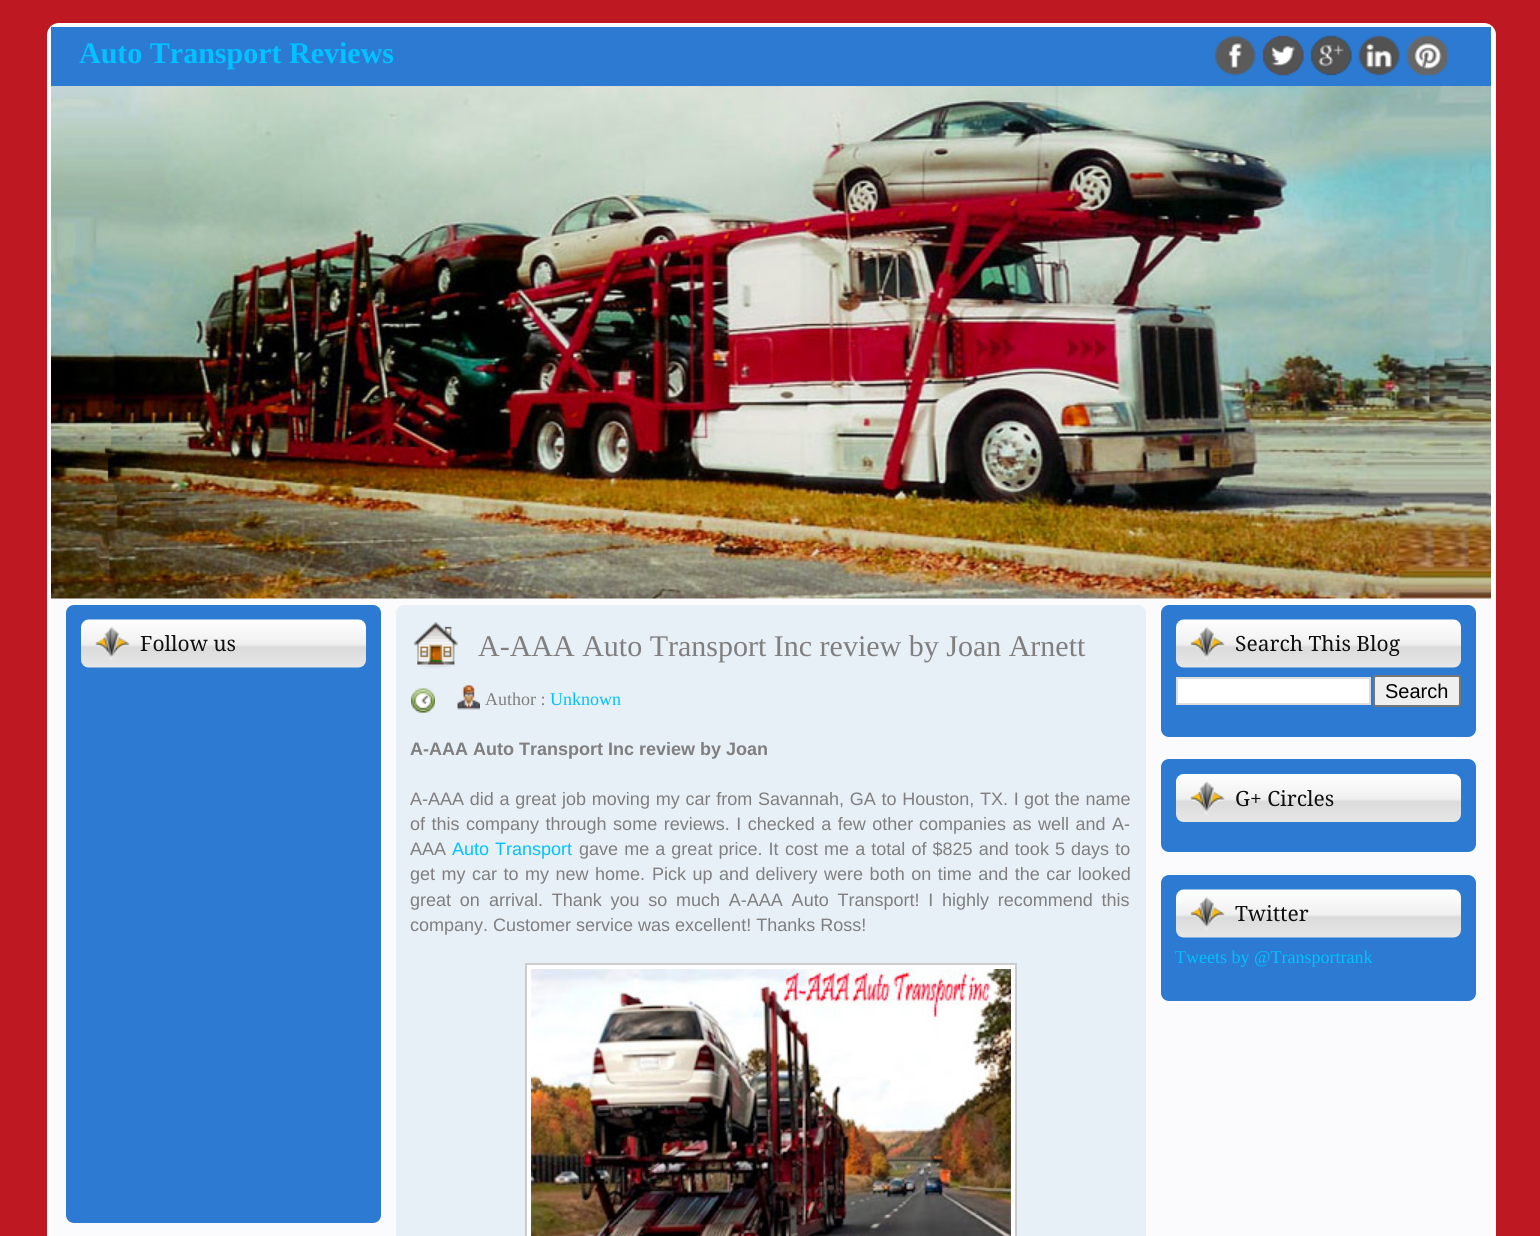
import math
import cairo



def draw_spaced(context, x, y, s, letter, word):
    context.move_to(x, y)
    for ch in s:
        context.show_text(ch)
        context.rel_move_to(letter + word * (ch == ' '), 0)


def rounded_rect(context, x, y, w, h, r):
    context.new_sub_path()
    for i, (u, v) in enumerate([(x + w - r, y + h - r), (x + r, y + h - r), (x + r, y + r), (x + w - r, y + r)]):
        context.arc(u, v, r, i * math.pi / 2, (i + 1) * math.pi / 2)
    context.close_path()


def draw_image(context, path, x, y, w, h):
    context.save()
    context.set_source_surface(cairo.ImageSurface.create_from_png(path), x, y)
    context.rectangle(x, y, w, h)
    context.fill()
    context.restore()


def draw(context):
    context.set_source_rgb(190 / 255, 24 / 255, 34 / 255)
    context.paint()
    context.set_source_rgb(251 / 255, 251 / 255, 253 / 255)
    rounded_rect(context, 49.5, 25.5, 1444, 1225, 9.5)
    context.fill_preserve()
    context.set_source_rgb(1, 1, 1)
    context.set_line_width(5)
    context.stroke()
    draw_image(context, "images/1.png", 51, 86, 1440, 513)
    context.set_source_rgb(44 / 255, 122 / 255, 209 / 255)
    context.rectangle(51, 27, 1440, 59)
    context.fill()
    draw_image(context, "images/2.png", 1214, 35, 42, 41)
    draw_image(context, "images/3.png", 1262, 35, 42, 41)
    draw_image(context, "images/4.png", 1310, 35, 42, 41)
    draw_image(context, "images/5.png", 1358, 35, 42, 41)
    draw_image(context, "images/6.png", 1406, 35, 42, 41)
    rounded_rect(context, 66, 605, 315, 618, 8)
    context.fill()
    draw_image(context, "images/7.png", 81, 619, 285, 49)
    context.set_source_rgb(231 / 255, 239 / 255, 247 / 255)
    rounded_rect(context, 396, 605, 750, 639, 8)
    context.fill()
    draw_image(context, "images/8.png", 413, 622, 45, 46)
    draw_image(context, "images/9.png", 411, 688, 24, 25)
    draw_image(context, "images/10.png", 457, 685, 23, 25)
    context.set_source_rgb(1, 1, 1)
    context.rectangle(526, 964, 490, 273)
    context.fill_preserve()
    context.set_source_rgb(204 / 255, 204 / 255, 204 / 255)
    context.set_line_width(2)
    context.stroke()
    draw_image(context, "images/11.png", 531, 969, 480, 267)
    context.set_source_rgb(44 / 255, 122 / 255, 209 / 255)
    rounded_rect(context, 1161, 605, 315, 132, 8)
    context.fill()
    draw_image(context, "images/12.png", 1176, 619, 285, 49)
    context.set_source_rgb(1, 1, 1)
    context.rectangle(1177, 678, 193, 26)
    context.fill_preserve()
    context.set_source_rgb(221 / 255, 221 / 255, 221 / 255)
    context.stroke()
    context.set_source_rgb(239 / 255, 239 / 255, 239 / 255)
    rounded_rect(context, 1374, 676, 86, 30, 2)
    context.fill_preserve()
    context.set_source_rgb(118 / 255, 118 / 255, 118 / 255)
    context.stroke()
    context.set_source_rgb(44 / 255, 122 / 255, 209 / 255)
    rounded_rect(context, 1161, 759, 315, 93, 8)
    context.fill()
    draw_image(context, "images/13.png", 1176, 774, 285, 48)
    rounded_rect(context, 1161, 875, 315, 126, 8)
    context.fill()
    draw_image(context, "images/12.png", 1176, 889, 285, 49)
    context.select_font_face("Liberation Serif", cairo.FontSlant.NORMAL, cairo.FontWeight.BOLD)
    context.set_font_size(30)
    context.set_source_rgb(0, 194 / 255, 1)
    context.move_to(79, 63)
    context.show_text("Auto Transport Reviews")
    context.select_font_face("Droid Serif")
    context.set_font_size(21)
    context.set_source_rgb(16 / 255, 16 / 255, 16 / 255)
    context.move_to(140, 651)
    context.show_text("Follow us")
    context.select_font_face("Liberation Serif")
    context.set_font_size(30)
    context.set_source_rgb(128 / 255, 126 / 255, 126 / 255)
    context.move_to(478, 656)
    context.show_text("A-AAA Auto Transport Inc review by Joan Arnett")
    context.set_font_size(18)
    context.move_to(485, 705)
    context.show_text("Author :")
    context.set_source_rgb(0, 194 / 255, 1)
    context.move_to(550, 705)
    context.show_text("Unknown")
    context.select_font_face("Liberation Sans", cairo.FontSlant.NORMAL, cairo.FontWeight.BOLD)
    context.set_source_rgb(128 / 255, 126 / 255, 126 / 255)
    context.move_to(410, 755)
    context.show_text("A-AAA Auto Transport Inc review by Joan")
    context.select_font_face("Liberation Sans")
    draw_spaced(context, 410, 805, "A-AAA did a great job moving my car from Savannah, GA to Houston, TX. I", 0, 0.75)
    draw_spaced(context, 1024, 805, "got the name", 0, 0.75)
    draw_spaced(context, 410, 830, "of this company through some reviews. I checked a few other", 0, 1.5)
    draw_spaced(context, 919, 830, "companies as well and A-", 0, 1.5)
    context.move_to(410, 855)
    context.show_text("AAA")
    context.set_source_rgb(0, 194 / 255, 1)
    draw_spaced(context, 452, 855, "Auto Transport", 0, 1)
    context.set_source_rgb(128 / 255, 126 / 255, 126 / 255)
    draw_spaced(context, 579, 855, "gave me a great price. It", 0, 1.1)
    draw_spaced(context, 785, 855, "cost me a total of $825 and took 5 days to", 0, 1.1)
    draw_spaced(context, 410, 880, "get my car to my new home.", 0, 1.5)
    draw_spaced(context, 652, 880, "Pick up and delivery were both on time and the car looked", 0, 1.5)
    draw_spaced(context, 410, 906, "great on", 0, 3.75)
    draw_spaced(context, 489, 906, "arrival. Thank you so much A-AAA Auto Transport! I highly recommend this", 0, 3.75)
    context.move_to(410, 931)
    context.show_text("company. Customer service was excellent! Thanks Ross!")
    context.select_font_face("Droid Serif")
    context.set_font_size(21)
    context.set_source_rgb(16 / 255, 16 / 255, 16 / 255)
    context.move_to(1235, 651)
    context.show_text("Search This Blog")
    context.select_font_face("Liberation Sans")
    context.set_font_size(20)
    context.set_source_rgb(0, 0, 0)
    context.move_to(1385, 698)
    context.show_text("Search")
    context.select_font_face("Droid Serif")
    context.set_font_size(21)
    context.set_source_rgb(16 / 255, 16 / 255, 16 / 255)
    context.move_to(1235, 806)
    context.show_text("G+ Circles")
    context.move_to(1235, 921)
    context.show_text("Twitter")
    context.select_font_face("Liberation Serif")
    context.set_font_size(18)
    context.set_source_rgb(0, 194 / 255, 1)
    context.move_to(1175, 963)
    context.show_text("Tweets by @Transportrank")


surface = cairo.ImageSurface(cairo.Format.RGB24, 1540, 1236)
context = cairo.Context(surface)
options = cairo.FontOptions()
options.set_hint_metrics(cairo.HintMetrics.OFF)
options.set_hint_style(cairo.HintStyle.NONE)
context.set_font_options(options)
context.set_miter_limit(4)
draw(context)
surface.write_to_png("out.png")
